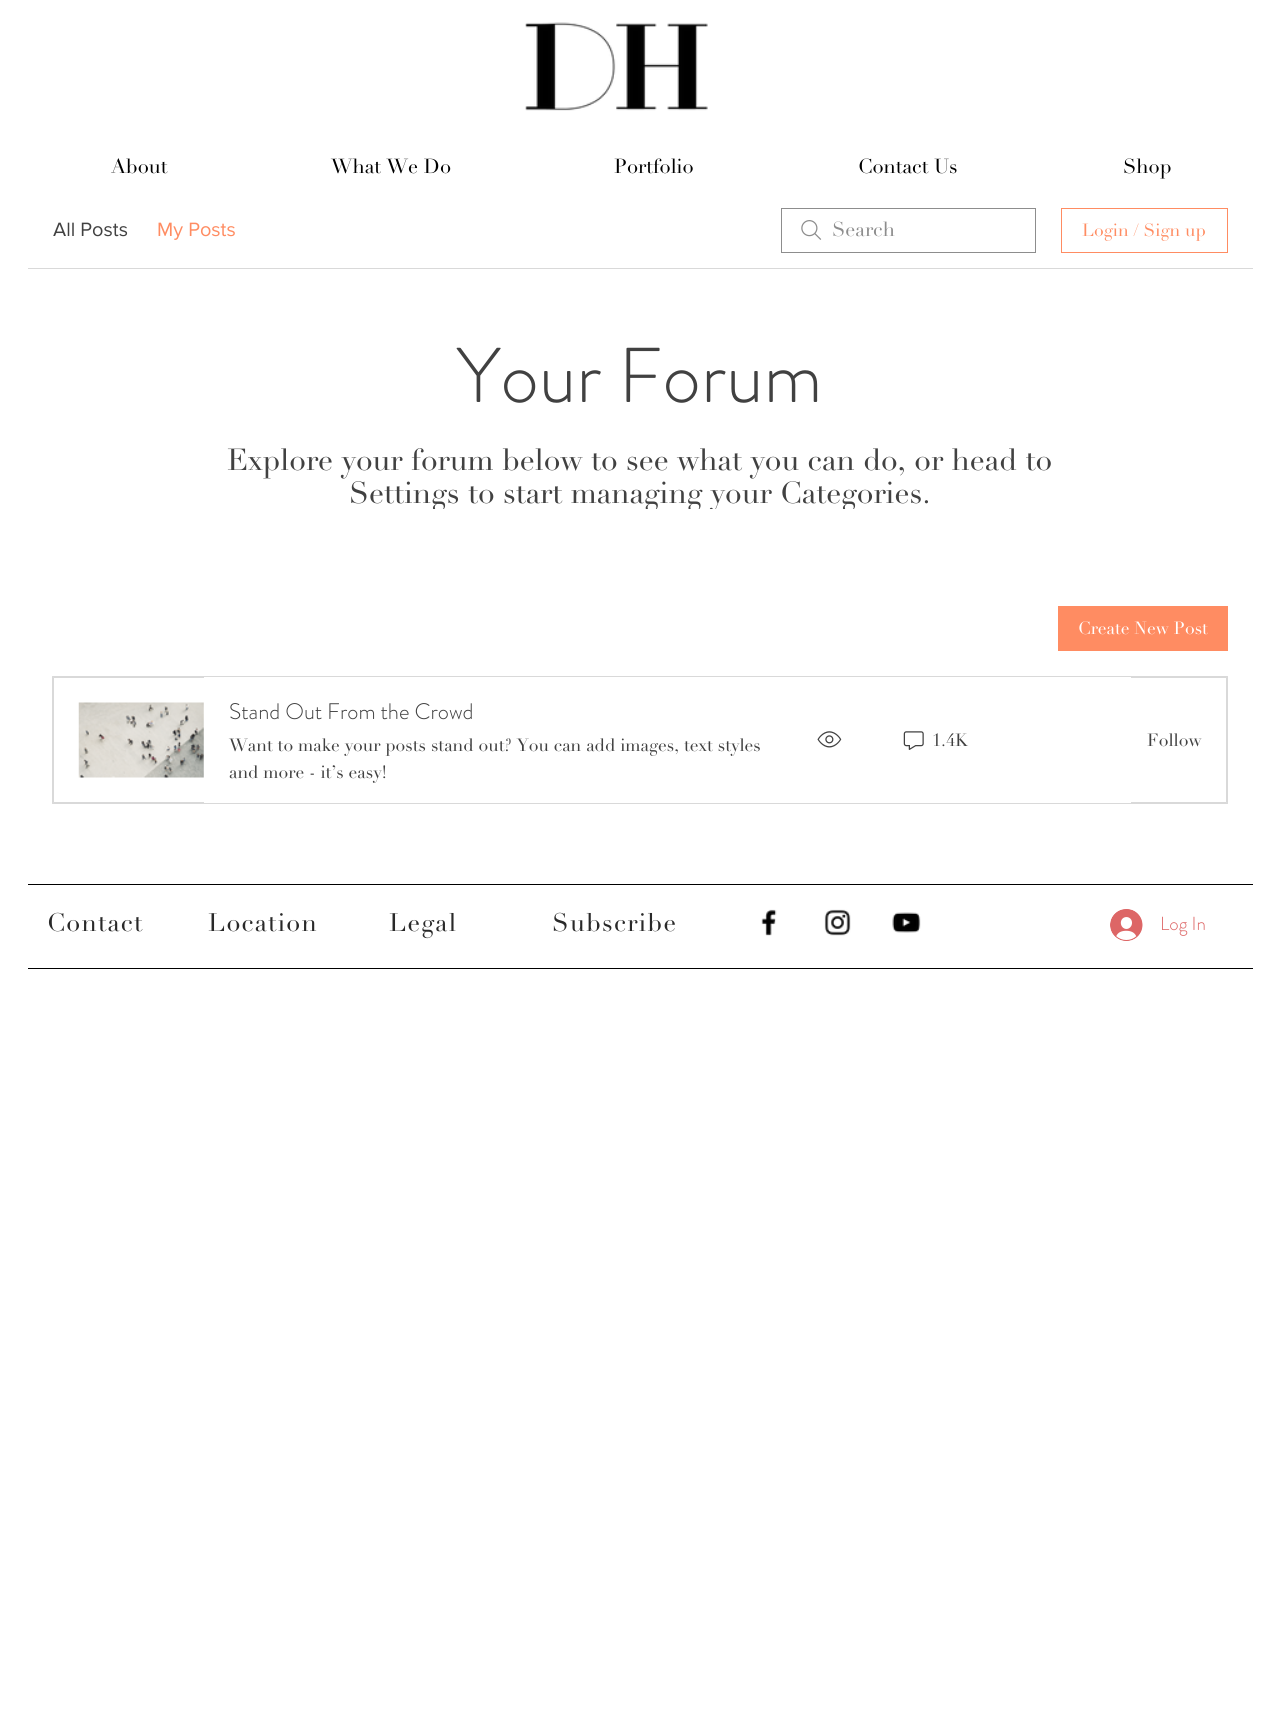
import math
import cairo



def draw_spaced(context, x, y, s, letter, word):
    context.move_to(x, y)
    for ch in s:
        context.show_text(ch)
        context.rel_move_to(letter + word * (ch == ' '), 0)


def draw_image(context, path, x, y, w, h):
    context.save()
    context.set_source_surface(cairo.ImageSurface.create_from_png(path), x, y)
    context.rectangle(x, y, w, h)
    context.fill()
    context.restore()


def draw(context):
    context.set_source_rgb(1, 1, 1)
    context.paint()
    draw_image(context, "images/1.png", 525, 22, 183, 89)
    context.set_source_rgb(217 / 255, 217 / 255, 217 / 255)
    context.rectangle(28, 268, 1225, 1)
    context.fill()
    draw_image(context, "images/2.png", 801, 220, 21, 20)
    context.rectangle(781.5, 208.5, 254, 44)
    context.set_source_rgb(141 / 255, 141 / 255, 141 / 255)
    context.set_line_width(1)
    context.stroke()
    context.rectangle(1061.5, 208.5, 166, 44)
    context.set_source_rgb(1, 140 / 255, 98 / 255)
    context.stroke()
    context.rectangle(1058, 606, 170, 45)
    context.fill()
    context.set_source_rgb(217 / 255, 217 / 255, 217 / 255)
    context.new_path()
    context.move_to(52, 676)
    context.line_to(204, 676)
    context.line_to(204, 678)
    context.line_to(54, 678)
    context.close_path()
    context.fill()
    context.new_path()
    context.move_to(204, 804)
    context.line_to(52, 804)
    context.line_to(54, 802)
    context.line_to(204, 802)
    context.close_path()
    context.fill()
    context.set_source_rgba(65 / 255, 65 / 255, 65 / 255, 0.2)
    context.new_path()
    context.move_to(52, 804)
    context.line_to(52, 676)
    context.line_to(54, 678)
    context.line_to(54, 802)
    context.close_path()
    context.fill()
    draw_image(context, "images/3.png", 78, 702, 126, 76)
    context.set_source_rgb(217 / 255, 217 / 255, 217 / 255)
    context.rectangle(204, 676, 927, 1)
    context.fill()
    context.rectangle(204, 803, 927, 1)
    context.fill()
    draw_image(context, "images/4.png", 817, 731, 25, 17)
    draw_image(context, "images/5.png", 903, 731, 21, 19)
    context.new_path()
    context.move_to(1131, 676)
    context.line_to(1228, 676)
    context.line_to(1226, 678)
    context.line_to(1131, 678)
    context.close_path()
    context.fill()
    context.set_source_rgba(65 / 255, 65 / 255, 65 / 255, 0.2)
    context.new_path()
    context.move_to(1228, 676)
    context.line_to(1228, 804)
    context.line_to(1226, 802)
    context.line_to(1226, 678)
    context.close_path()
    context.fill()
    context.new_path()
    context.move_to(1228, 804)
    context.line_to(1131, 804)
    context.line_to(1131, 802)
    context.line_to(1226, 802)
    context.close_path()
    context.fill()
    context.set_source_rgb(0, 0, 0)
    context.rectangle(28, 884, 1225, 1)
    context.fill()
    draw_image(context, "images/6.png", 761, 909, 16, 27)
    draw_image(context, "images/7.png", 824, 909, 27, 27)
    draw_image(context, "images/8.png", 892, 912, 29, 21)
    draw_image(context, "images/9.png", 1110, 909, 33, 32)
    context.rectangle(28, 968, 1225, 1)
    context.fill()
    context.select_font_face("Didot")
    context.set_font_size(20)
    context.move_to(111, 173)
    context.show_text("About")
    context.move_to(331, 173)
    context.show_text("What We Do")
    context.move_to(614, 173)
    context.show_text("Portfolio")
    context.move_to(858, 173)
    context.show_text("Contact Us")
    context.move_to(1123, 173)
    context.show_text("Shop")
    context.select_font_face("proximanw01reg")
    context.set_source_rgb(65 / 255, 65 / 255, 65 / 255)
    context.move_to(53, 236)
    context.show_text("All Posts")
    context.set_source_rgb(1, 140 / 255, 98 / 255)
    context.move_to(157, 236)
    context.show_text("My Posts")
    context.select_font_face("Didot")
    context.set_source_rgb(141 / 255, 141 / 255, 141 / 255)
    context.move_to(832, 236)
    context.show_text("Search")
    context.set_font_size(17.5)
    context.set_source_rgb(1, 140 / 255, 98 / 255)
    context.move_to(1082, 236)
    context.show_text("Login / Sign up")
    context.select_font_face("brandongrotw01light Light")
    context.set_font_size(77.5)
    context.set_source_rgb(65 / 255, 65 / 255, 65 / 255)
    context.move_to(457, 402)
    context.show_text("Your Forum")
    context.select_font_face("Didot")
    context.set_font_size(30)
    context.move_to(227, 470)
    context.show_text("Explore your forum below to see what you can do, or head to")
    context.save()
    context.rectangle(215, 444, 850, 65)
    context.clip()
    context.move_to(349, 503)
    context.show_text("Settings to start managing your Categories.")
    context.restore()
    context.set_font_size(17.5)
    context.set_source_rgb(1, 1, 1)
    context.move_to(1078, 634)
    context.show_text("Create New Post")
    context.select_font_face("brandongrotw01light Light")
    context.set_font_size(22.5)
    context.set_source_rgb(65 / 255, 65 / 255, 65 / 255)
    context.move_to(229, 719)
    context.show_text("Stand Out From the Crowd")
    context.select_font_face("Didot")
    context.set_font_size(17.5)
    context.move_to(229, 751)
    context.show_text("Want to make your posts stand out? You can add images, text styles")
    context.move_to(229, 778)
    context.show_text("and more - it’s easy!")
    context.move_to(932, 746)
    context.show_text("1.4K")
    context.move_to(1147, 746)
    context.show_text("Follow")
    context.set_font_size(25)
    context.set_source_rgb(41 / 255, 41 / 255, 41 / 255)
    draw_spaced(context, 47, 931, "Contact", 1.25, 0)
    draw_spaced(context, 208, 931, "Location", 1.25, 0)
    draw_spaced(context, 389, 931, "Legal", 1.25, 0)
    draw_spaced(context, 552, 931, "Subscribe", 1.25, 0)
    context.select_font_face("brandongrotw01light Light")
    context.set_font_size(19)
    context.set_source_rgb(221 / 255, 102 / 255, 102 / 255)
    context.move_to(1160, 930)
    context.show_text("Log In")


surface = cairo.ImageSurface(cairo.Format.RGB24, 1280, 1709)
context = cairo.Context(surface)
options = cairo.FontOptions()
options.set_hint_metrics(cairo.HintMetrics.OFF)
options.set_hint_style(cairo.HintStyle.NONE)
context.set_font_options(options)
context.set_miter_limit(4)
draw(context)
surface.write_to_png("out.png")
